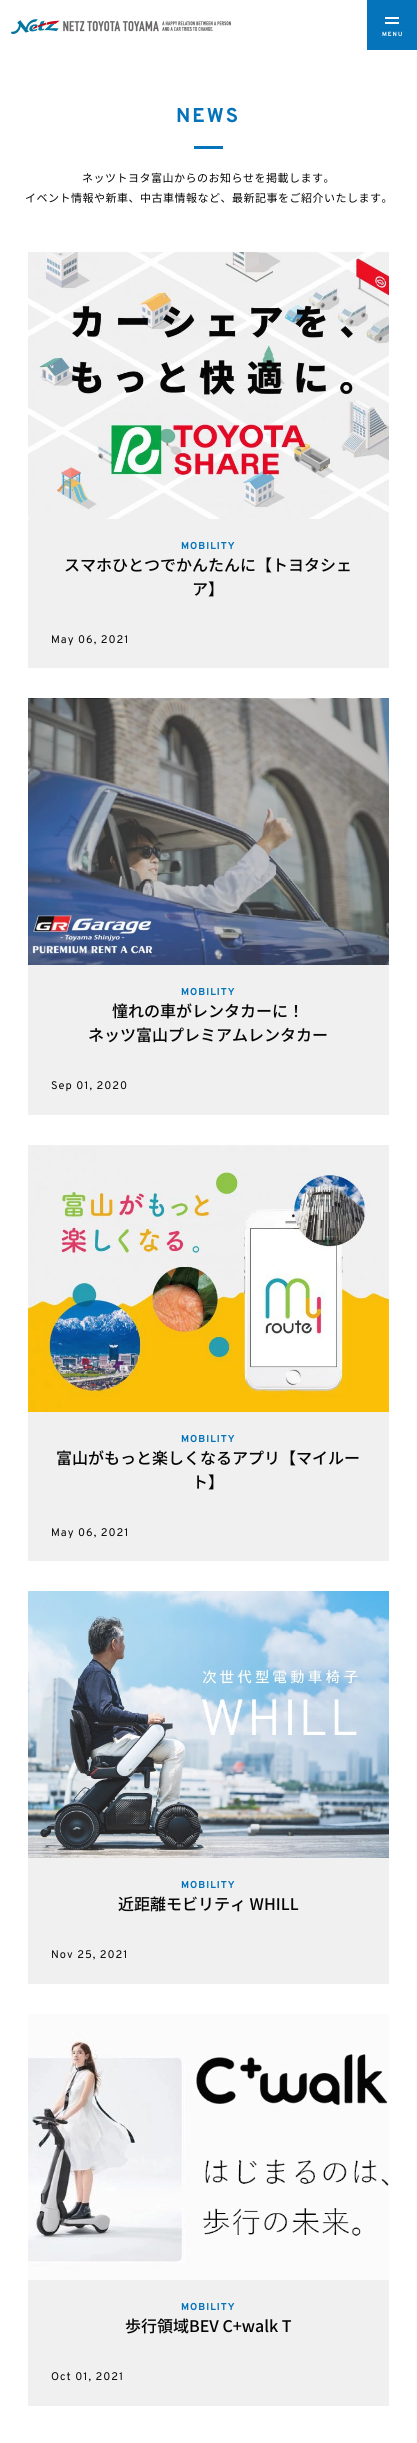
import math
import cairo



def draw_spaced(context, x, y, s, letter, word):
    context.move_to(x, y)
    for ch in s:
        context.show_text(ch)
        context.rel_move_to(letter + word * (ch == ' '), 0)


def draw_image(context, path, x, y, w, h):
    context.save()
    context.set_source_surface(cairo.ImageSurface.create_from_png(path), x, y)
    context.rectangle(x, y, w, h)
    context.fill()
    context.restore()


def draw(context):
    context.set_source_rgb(1, 1, 1)
    context.paint()
    draw_image(context, "images/1.png", 11, 19, 220, 16)
    context.set_source_rgb(5 / 255, 116 / 255, 186 / 255)
    context.rectangle(367, 0, 50, 50)
    context.fill()
    context.set_source_rgb(1, 1, 1)
    context.rectangle(385, 17, 14, 2)
    context.fill()
    context.rectangle(385, 22, 14, 2)
    context.fill()
    context.set_source_rgb(5 / 255, 116 / 255, 186 / 255)
    context.rectangle(194, 146, 29, 3)
    context.fill()
    context.set_source_rgb(240 / 255, 240 / 255, 240 / 255)
    context.rectangle(28, 519, 361, 149)
    context.fill()
    draw_image(context, "images/2.png", 28, 252, 361, 267)
    context.rectangle(28, 965, 361, 150)
    context.fill()
    draw_image(context, "images/3.png", 28, 698, 361, 267)
    context.rectangle(28, 1412, 361, 149)
    context.fill()
    draw_image(context, "images/4.png", 28, 1145, 361, 267)
    context.rectangle(28, 1858, 361, 126)
    context.fill()
    draw_image(context, "images/5.png", 28, 1591, 361, 267)
    context.rectangle(28, 2280, 361, 126)
    context.fill()
    draw_image(context, "images/6.png", 28, 2014, 361, 266)
    context.select_font_face("Overpass", cairo.FontSlant.NORMAL, cairo.FontWeight.BOLD)
    context.set_font_size(6)
    context.set_source_rgb(1, 1, 1)
    draw_spaced(context, 382, 36, "MENU", 1, 0)
    context.set_font_size(20)
    context.set_source_rgb(5 / 255, 115 / 255, 185 / 255)
    draw_spaced(context, 176, 122, "NEWS", 2, 0)
    context.select_font_face("Noto Sans JP")
    context.set_font_size(11)
    context.set_source_rgb(5 / 255, 5 / 255, 5 / 255)
    draw_spaced(context, 82, 182, "ネッツトヨタ富山からのお知らせを掲載します。", 0.5, 0)
    draw_spaced(context, 25, 202, "イベント情報や新車、中古車情報など、最新記事をご紹介いたします。", 0.5, 0)
    context.select_font_face("Overpass", cairo.FontSlant.NORMAL, cairo.FontWeight.BOLD)
    context.set_font_size(10)
    context.set_source_rgb(5 / 255, 115 / 255, 185 / 255)
    draw_spaced(context, 181, 549, "MOBILITY", 1, 0)
    context.select_font_face("Noto Sans JP Medium")
    context.set_font_size(16)
    context.set_source_rgb(5 / 255, 5 / 255, 5 / 255)
    context.move_to(64, 571)
    context.show_text("スマホひとつでかんたんに【トヨタシェ")
    context.move_to(192, 595)
    context.show_text("ア】")
    context.select_font_face("Overpass")
    context.set_font_size(11)
    draw_spaced(context, 51, 643, "May 06, 2021", 1, 0)
    context.select_font_face("Overpass", cairo.FontSlant.NORMAL, cairo.FontWeight.BOLD)
    context.set_font_size(10)
    context.set_source_rgb(5 / 255, 115 / 255, 185 / 255)
    draw_spaced(context, 181, 995, "MOBILITY", 1, 0)
    context.select_font_face("Noto Sans JP Medium")
    context.set_font_size(16)
    context.set_source_rgb(5 / 255, 5 / 255, 5 / 255)
    context.move_to(112, 1017)
    context.show_text("憧れの車がレンタカーに！")
    context.move_to(88, 1041)
    context.show_text("ネッツ富山プレミアムレンタカー")
    context.select_font_face("Overpass")
    context.set_font_size(11)
    draw_spaced(context, 51, 1089, "Sep 01, 2020", 1, 0)
    context.select_font_face("Overpass", cairo.FontSlant.NORMAL, cairo.FontWeight.BOLD)
    context.set_font_size(10)
    context.set_source_rgb(5 / 255, 115 / 255, 185 / 255)
    draw_spaced(context, 181, 1442, "MOBILITY", 1, 0)
    context.select_font_face("Noto Sans JP Medium")
    context.set_font_size(16)
    context.set_source_rgb(5 / 255, 5 / 255, 5 / 255)
    context.move_to(56, 1464)
    context.show_text("富山がもっと楽しくなるアプリ【マイルー")
    context.move_to(192, 1488)
    context.show_text("ト】")
    context.select_font_face("Overpass")
    context.set_font_size(11)
    draw_spaced(context, 51, 1536, "May 06, 2021", 1, 0)
    context.select_font_face("Overpass", cairo.FontSlant.NORMAL, cairo.FontWeight.BOLD)
    context.set_font_size(10)
    context.set_source_rgb(5 / 255, 115 / 255, 185 / 255)
    draw_spaced(context, 181, 1888, "MOBILITY", 1, 0)
    context.select_font_face("Noto Sans JP Medium")
    context.set_font_size(16)
    context.set_source_rgb(5 / 255, 5 / 255, 5 / 255)
    context.move_to(118, 1910)
    context.show_text("近距離モビリティ WHILL")
    context.select_font_face("Overpass")
    context.set_font_size(11)
    draw_spaced(context, 51, 1958, "Nov 25, 2021", 1, 0)
    context.select_font_face("Overpass", cairo.FontSlant.NORMAL, cairo.FontWeight.BOLD)
    context.set_font_size(10)
    context.set_source_rgb(5 / 255, 115 / 255, 185 / 255)
    draw_spaced(context, 181, 2310, "MOBILITY", 1, 0)
    context.select_font_face("Noto Sans JP Medium")
    context.set_font_size(16)
    context.set_source_rgb(5 / 255, 5 / 255, 5 / 255)
    context.move_to(125, 2332)
    context.show_text("歩行領域BEV C+walk T")
    context.select_font_face("Overpass")
    context.set_font_size(11)
    draw_spaced(context, 51, 2380, "Oct 01, 2021", 1, 0)


surface = cairo.ImageSurface(cairo.Format.RGB24, 417, 2443)
context = cairo.Context(surface)
options = cairo.FontOptions()
options.set_hint_metrics(cairo.HintMetrics.OFF)
options.set_hint_style(cairo.HintStyle.NONE)
context.set_font_options(options)
context.set_miter_limit(4)
draw(context)
surface.write_to_png("out.png")
